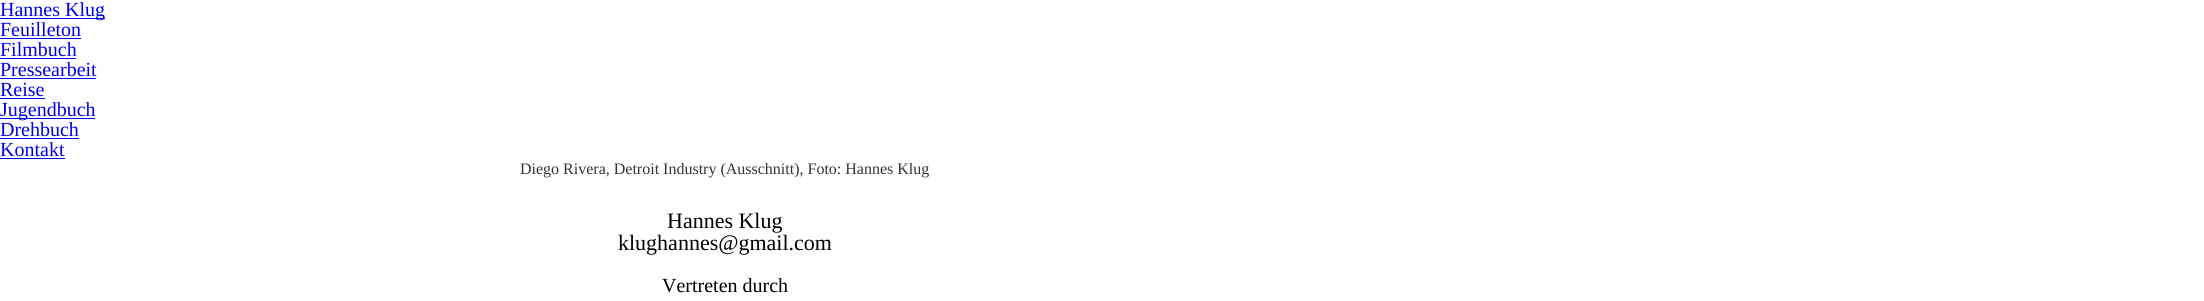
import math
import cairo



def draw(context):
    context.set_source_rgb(1, 1, 1)
    context.paint()
    context.set_source_rgb(0, 0, 238 / 255)
    context.rectangle(0, 18, 105, 1)
    context.fill()
    context.rectangle(0, 38, 81, 1)
    context.fill()
    context.rectangle(0, 58, 76, 1)
    context.fill()
    context.rectangle(0, 78, 96, 1)
    context.fill()
    context.rectangle(0, 98, 45, 1)
    context.fill()
    context.rectangle(0, 118, 95, 1)
    context.fill()
    context.rectangle(0, 138, 79, 1)
    context.fill()
    context.rectangle(0, 158, 65, 1)
    context.fill()
    context.select_font_face("Liberation Serif")
    context.set_font_size(20)
    context.move_to(0, 16)
    context.show_text("Hannes Klug")
    context.move_to(0, 36)
    context.show_text("Feuilleton")
    context.move_to(0, 56)
    context.show_text("Filmbuch")
    context.move_to(0, 76)
    context.show_text("Pressearbeit")
    context.move_to(0, 96)
    context.show_text("Reise")
    context.move_to(0, 116)
    context.show_text("Jugendbuch")
    context.move_to(0, 136)
    context.show_text("Drehbuch")
    context.move_to(0, 156)
    context.show_text("Kontakt")
    context.set_font_size(16)
    context.set_source_rgb(51 / 255, 51 / 255, 51 / 255)
    context.move_to(520, 174)
    context.show_text("Diego Rivera, Detroit Industry (Ausschnitt), Foto: Hannes Klug")
    context.set_font_size(22)
    context.set_source_rgb(0, 0, 0)
    context.move_to(667, 228)
    context.show_text("Hannes Klug")
    context.move_to(618, 250)
    context.show_text("klughannes@gmail.com")
    context.set_font_size(20)
    context.move_to(662, 292)
    context.show_text("Vertreten durch")


surface = cairo.ImageSurface(cairo.Format.RGB24, 2204, 301)
context = cairo.Context(surface)
options = cairo.FontOptions()
options.set_hint_metrics(cairo.HintMetrics.OFF)
options.set_hint_style(cairo.HintStyle.NONE)
context.set_font_options(options)
context.set_miter_limit(4)
draw(context)
surface.write_to_png("out.png")
